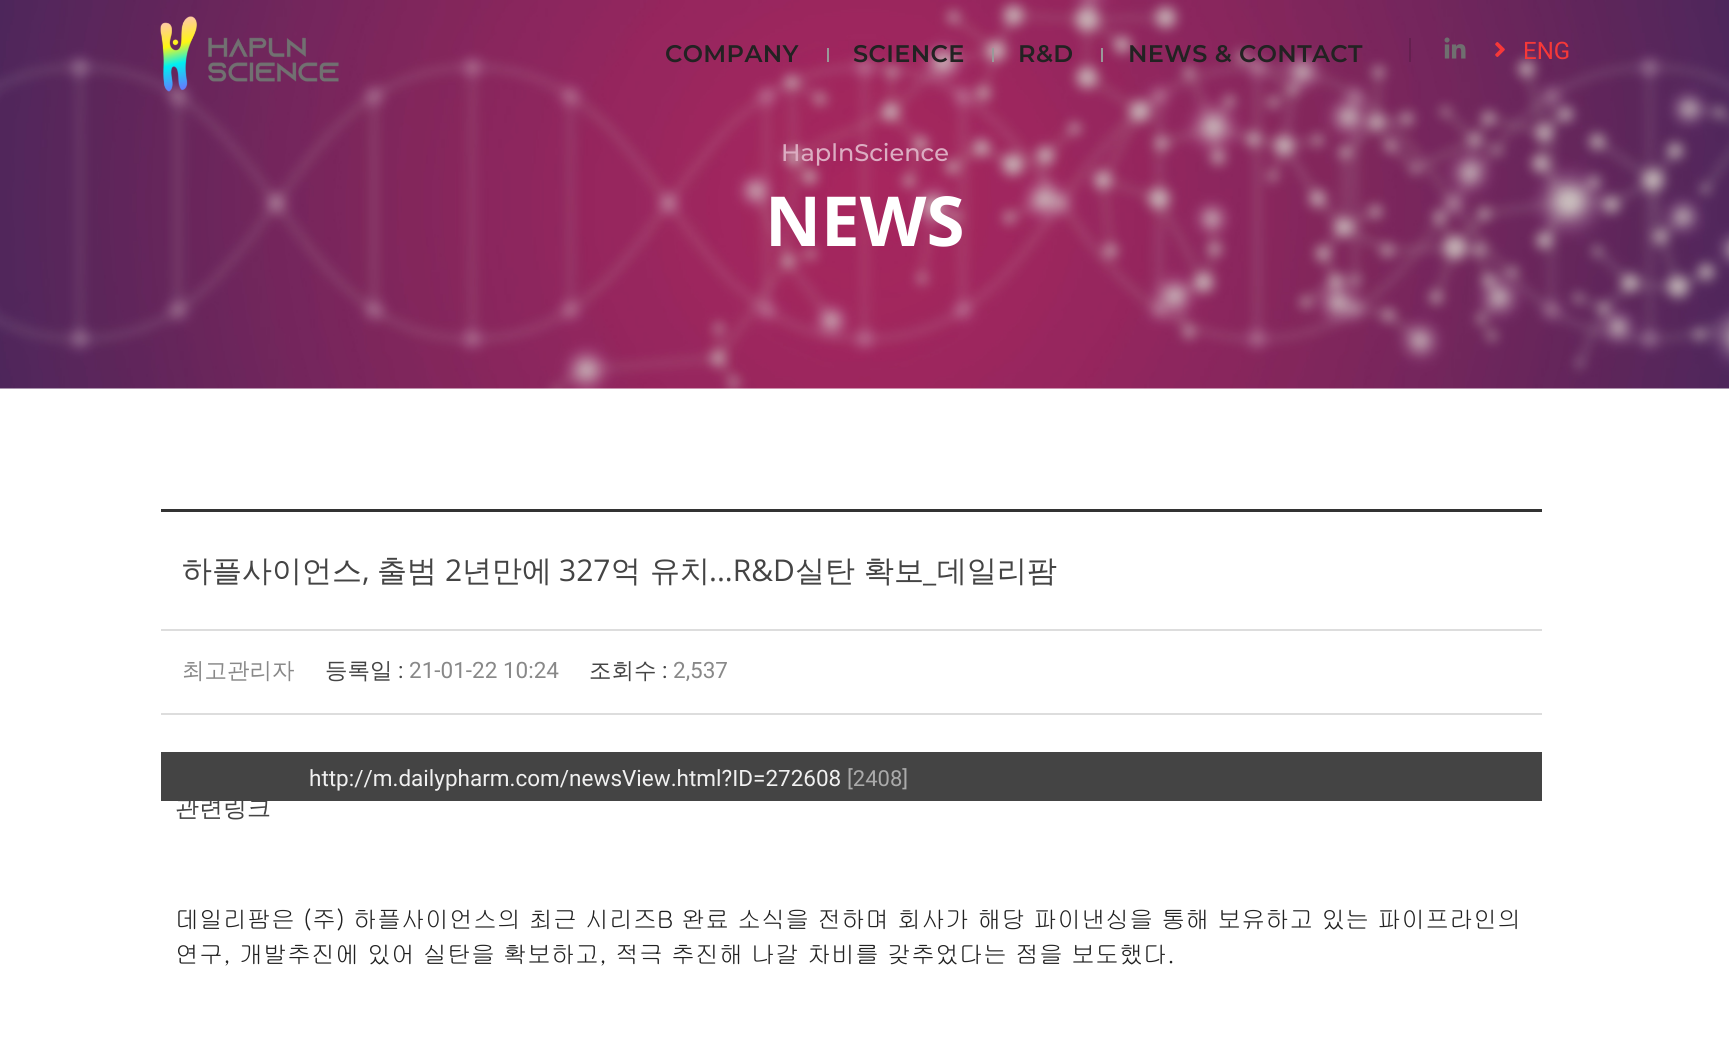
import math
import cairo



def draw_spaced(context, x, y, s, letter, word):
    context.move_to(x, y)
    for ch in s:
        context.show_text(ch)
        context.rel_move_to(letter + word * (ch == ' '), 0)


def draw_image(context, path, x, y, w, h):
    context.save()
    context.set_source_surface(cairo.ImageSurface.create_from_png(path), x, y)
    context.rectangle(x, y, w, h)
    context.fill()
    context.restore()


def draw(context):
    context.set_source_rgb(1, 1, 1)
    context.paint()
    draw_image(context, "images/4.png", 0, 0, 1729, 389)
    draw_image(context, "images/1.png", 160, 16, 179, 76)
    context.set_source_rgb(153 / 255, 153 / 255, 153 / 255)
    context.rectangle(827, 48, 2, 14)
    context.fill()
    context.rectangle(992, 48, 2, 14)
    context.fill()
    context.rectangle(1101, 48, 2, 14)
    context.fill()
    context.set_source_rgb(100 / 255, 32 / 255, 79 / 255)
    context.rectangle(1409, 38, 2, 24)
    context.fill()
    draw_image(context, "images/2.png", 1444, 37, 22, 22)
    draw_image(context, "images/3.png", 1495, 42, 10, 15)
    context.set_source_rgb(51 / 255, 51 / 255, 51 / 255)
    context.rectangle(161, 509, 1381, 3)
    context.fill()
    context.set_source_rgb(221 / 255, 221 / 255, 221 / 255)
    context.rectangle(161, 629, 1381, 2)
    context.fill()
    context.rectangle(161, 713, 1381, 2)
    context.fill()
    context.set_source_rgb(68 / 255, 68 / 255, 68 / 255)
    context.rectangle(161, 752, 1381, 49)
    context.fill()
    context.select_font_face("Montserrat SemiBold")
    context.set_font_size(24)
    context.set_source_rgb(34 / 255, 34 / 255, 34 / 255)
    draw_spaced(context, 665, 62, "COMPANY", 0.4, 0)
    draw_spaced(context, 853, 62, "SCIENCE", 0.4, 0)
    draw_spaced(context, 1018, 62, "R&D", 0.4, 0)
    draw_spaced(context, 1128, 62, "NEWS & CONTACT", 0.4, 0)
    context.select_font_face("Roboto")
    context.set_source_rgb(247 / 255, 56 / 255, 56 / 255)
    context.move_to(1523, 59)
    context.show_text("ENG")
    context.select_font_face("Montserrat Medium")
    context.set_source_rgb(220 / 255, 173 / 255, 194 / 255)
    context.move_to(781, 161)
    context.show_text("HaplnScience")
    context.select_font_face("Open Sans", cairo.FontSlant.NORMAL, cairo.FontWeight.BOLD)
    context.set_font_size(69)
    context.set_source_rgb(1, 1, 1)
    context.move_to(765, 246)
    context.show_text("NEWS")
    context.select_font_face("WenQuanYi Zen Hei Medium")
    context.set_font_size(30)
    context.set_source_rgb(68 / 255, 68 / 255, 68 / 255)
    context.move_to(182, 581)
    context.show_text("하플사이언스")
    context.select_font_face("Open Sans")
    context.move_to(362, 581)
    context.show_text(",")
    context.select_font_face("WenQuanYi Zen Hei Medium")
    context.move_to(377, 581)
    context.show_text("출범")
    context.select_font_face("Open Sans")
    context.move_to(445, 581)
    context.show_text("2")
    context.select_font_face("WenQuanYi Zen Hei Medium")
    context.move_to(462, 581)
    context.show_text("년만에")
    context.select_font_face("Open Sans")
    context.move_to(559, 581)
    context.show_text("327")
    context.select_font_face("WenQuanYi Zen Hei Medium")
    context.move_to(611, 581)
    context.show_text("억 유치")
    context.select_font_face("Open Sans")
    context.move_to(709, 581)
    context.show_text("...R&D")
    context.select_font_face("WenQuanYi Zen Hei Medium")
    context.move_to(795, 581)
    context.show_text("실탄 확보")
    context.select_font_face("Open Sans")
    context.move_to(923, 581)
    context.show_text("_")
    context.select_font_face("WenQuanYi Zen Hei Medium")
    context.move_to(937, 581)
    context.show_text("데일리팜")
    context.set_font_size(22.5)
    context.set_source_rgb(136 / 255, 136 / 255, 136 / 255)
    context.move_to(182, 678)
    context.show_text("최고관리자")
    context.set_source_rgb(68 / 255, 68 / 255, 68 / 255)
    context.move_to(325, 678)
    context.show_text("등록일")
    context.select_font_face("Roboto")
    context.move_to(398, 678)
    context.show_text(":")
    context.set_source_rgb(136 / 255, 136 / 255, 136 / 255)
    context.move_to(409, 678)
    context.show_text("21-01-22 10:24")
    context.select_font_face("WenQuanYi Zen Hei Medium")
    context.set_source_rgb(68 / 255, 68 / 255, 68 / 255)
    context.move_to(589, 678)
    context.show_text("조회수")
    context.select_font_face("Roboto")
    context.move_to(662, 678)
    context.show_text(":")
    context.set_source_rgb(136 / 255, 136 / 255, 136 / 255)
    context.move_to(673, 678)
    context.show_text("2,537")
    context.set_source_rgb(240 / 255, 240 / 255, 240 / 255)
    context.move_to(309, 786)
    context.show_text("http://m.dailypharm.com/newsView.html?ID=272608")
    context.set_font_size(22)
    context.set_source_rgb(170 / 255, 170 / 255, 170 / 255)
    context.move_to(847, 786)
    context.show_text("[2408]")
    context.select_font_face("WenQuanYi Zen Hei Medium")
    context.set_font_size(24)
    context.set_source_rgb(68 / 255, 68 / 255, 68 / 255)
    context.move_to(175, 816)
    context.show_text("관련링크")
    context.select_font_face("Gulim")
    context.set_source_rgb(34 / 255, 34 / 255, 34 / 255)
    context.move_to(175, 928)
    context.show_text("데일리팜은 (주) 하플사이언스의 최근 시리즈B 완료 소식을 전하며 회사가 해당 파이낸싱을 통해 보유하고 있는 파이프라인의")
    context.move_to(175, 963)
    context.show_text("연구, 개발추진에 있어 실탄을 확보하고, 적극 추진해 나갈 차비를 갖추었다는 점을 보도했다.")


surface = cairo.ImageSurface(cairo.Format.RGB24, 1729, 1037)
context = cairo.Context(surface)
options = cairo.FontOptions()
options.set_hint_metrics(cairo.HintMetrics.OFF)
options.set_hint_style(cairo.HintStyle.NONE)
context.set_font_options(options)
context.set_miter_limit(4)
draw(context)
surface.write_to_png("out.png")
